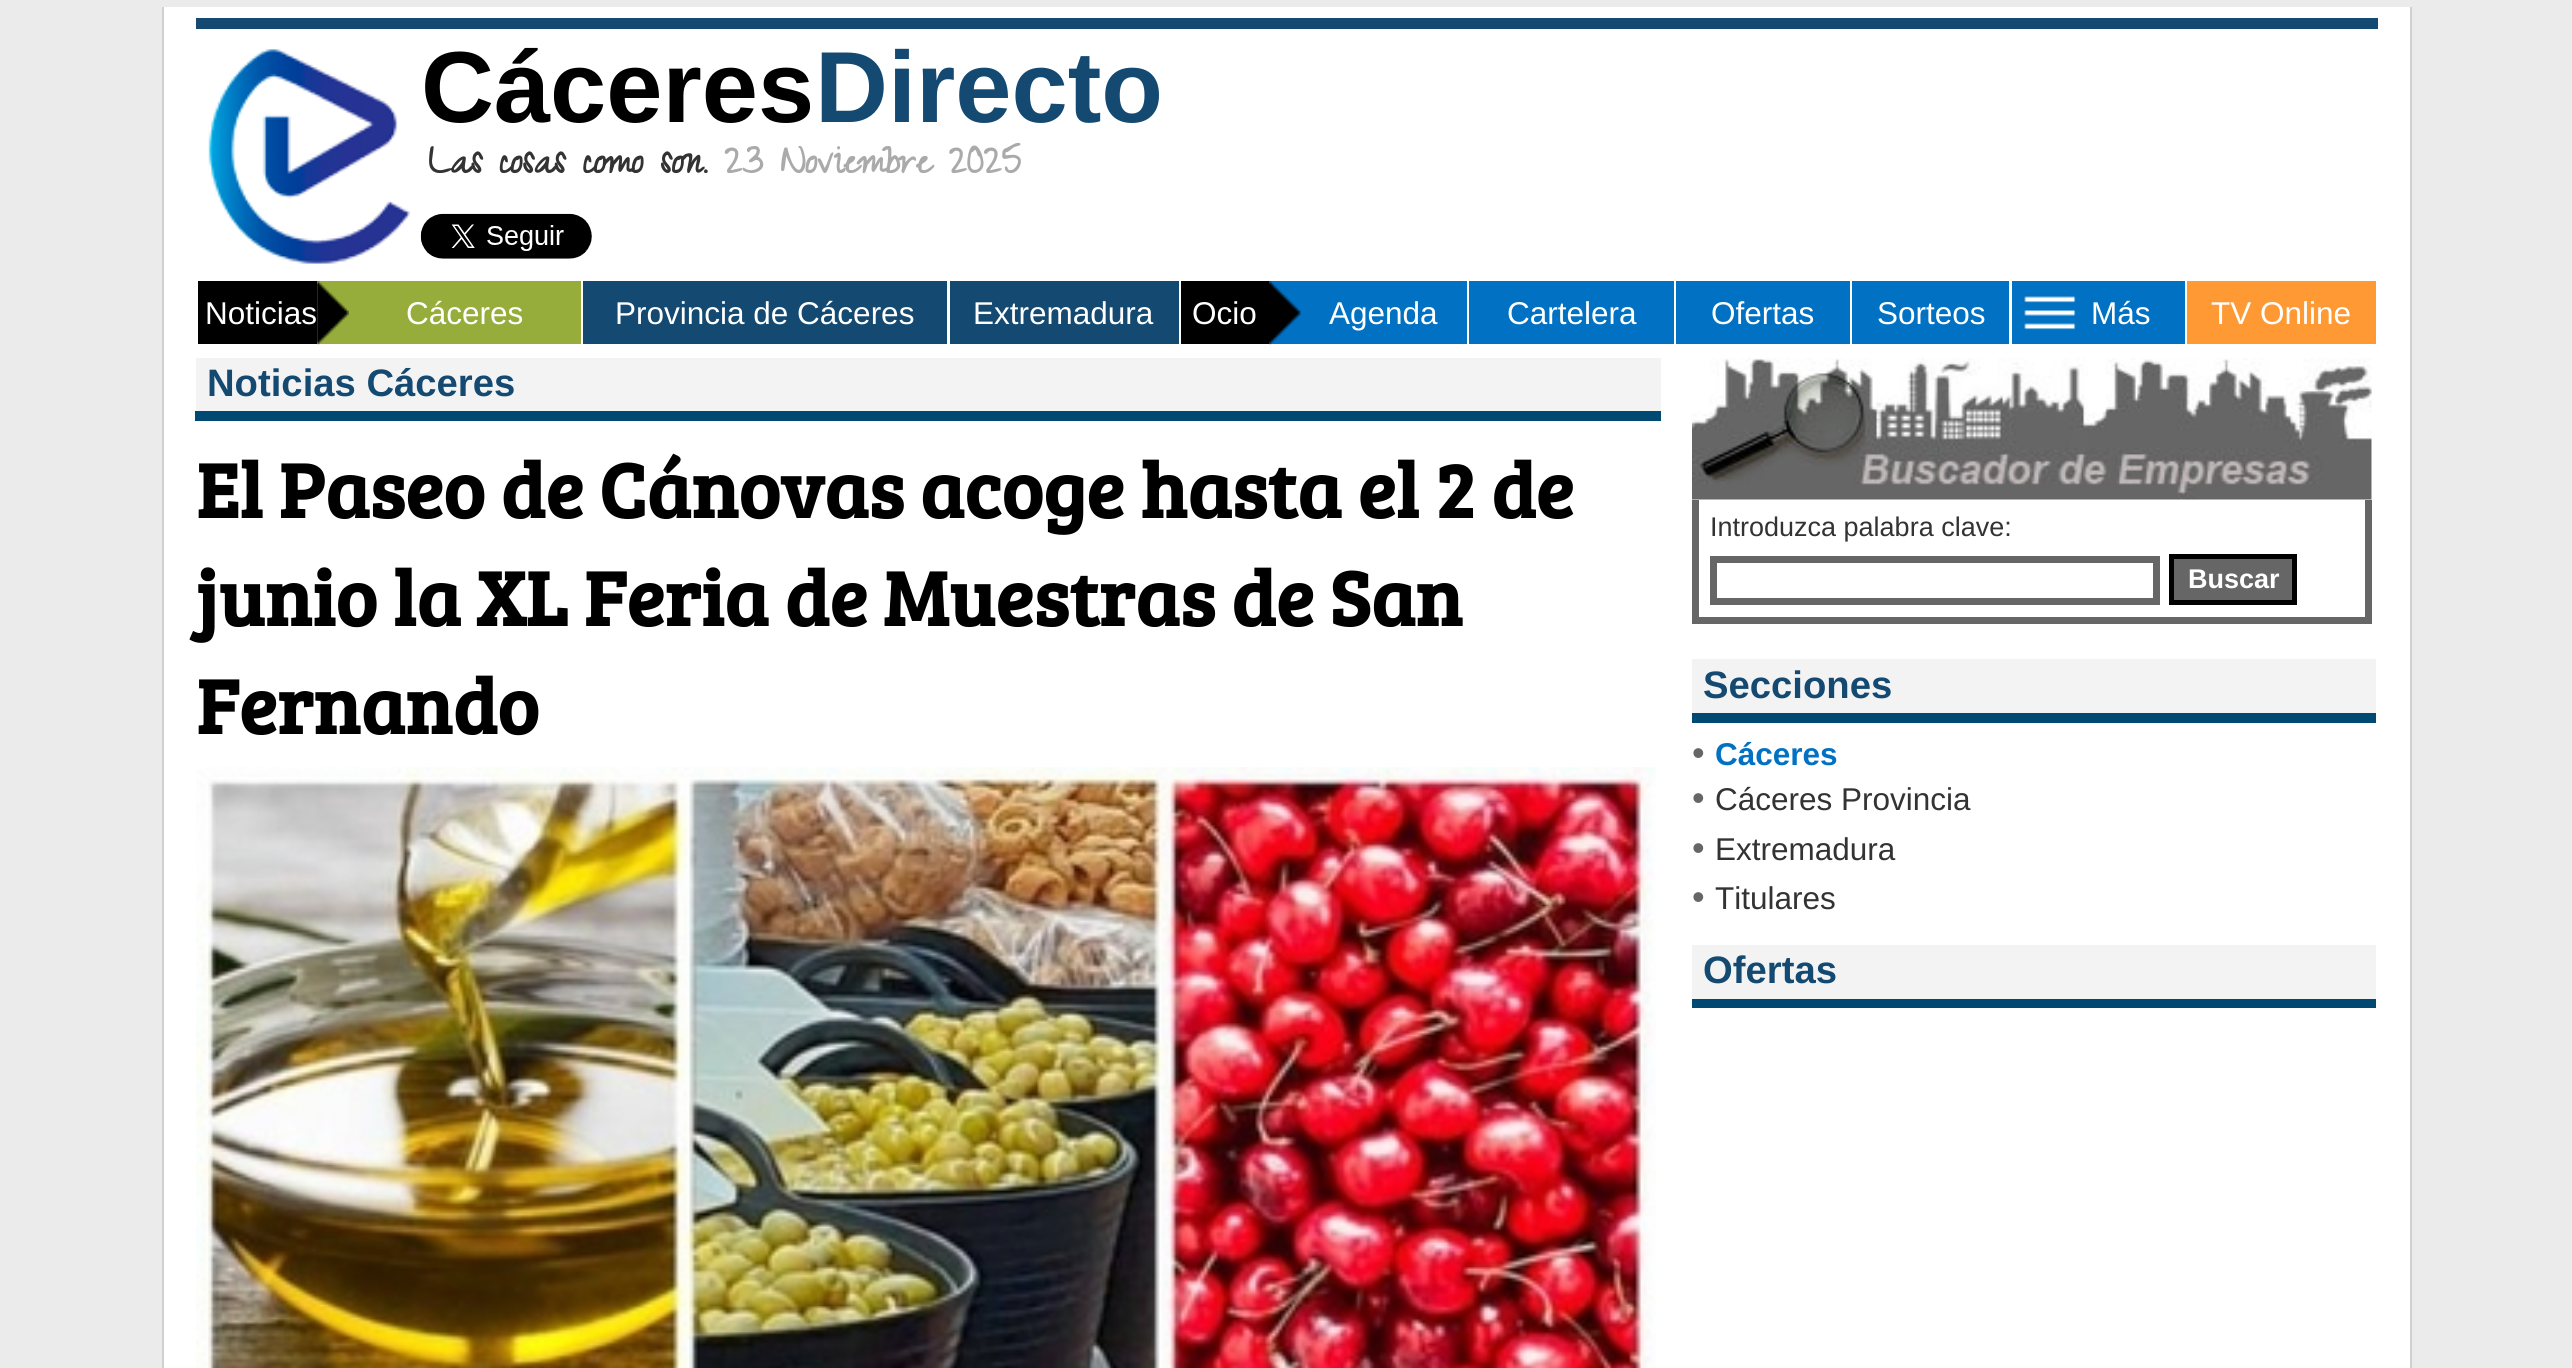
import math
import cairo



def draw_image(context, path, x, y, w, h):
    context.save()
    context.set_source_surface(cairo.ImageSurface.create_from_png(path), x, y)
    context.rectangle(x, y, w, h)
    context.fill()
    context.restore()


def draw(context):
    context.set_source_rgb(235 / 255, 235 / 255, 235 / 255)
    context.paint()
    context.set_source_rgb(1, 1, 1)
    context.rectangle(164, 7, 2246, 1361)
    context.fill()
    context.set_source_rgb(208 / 255, 208 / 255, 208 / 255)
    context.rectangle(2410, 7, 2, 1361)
    context.fill()
    context.rectangle(162, 7, 2, 1361)
    context.fill()
    context.set_source_rgb(20 / 255, 74 / 255, 113 / 255)
    context.rectangle(196, 18, 2182, 11)
    context.fill()
    draw_image(context, "images/1.png", 208, 49, 202, 215)
    draw_image(context, "images/2.png", 420, 213, 172, 46)
    context.set_source_rgb(150 / 255, 173 / 255, 59 / 255)
    context.rectangle(317, 281, 264, 63)
    context.fill()
    draw_image(context, "images/3.png", 317, 281, 32, 64)
    context.set_source_rgb(0, 0, 0)
    context.rectangle(198, 281, 119, 63)
    context.fill()
    context.set_source_rgb(20 / 255, 74 / 255, 113 / 255)
    context.rectangle(583, 281, 364, 63)
    context.fill()
    context.rectangle(950, 281, 229, 63)
    context.fill()
    context.set_source_rgb(0, 113 / 255, 195 / 255)
    context.rectangle(1269, 281, 198, 63)
    context.fill()
    context.set_source_rgb(0, 0, 0)
    context.rectangle(1181, 281, 88, 63)
    context.fill()
    draw_image(context, "images/4.png", 1269, 281, 32, 64)
    context.set_source_rgb(0, 113 / 255, 195 / 255)
    context.rectangle(1469, 281, 205, 63)
    context.fill()
    context.rectangle(1676, 281, 174, 63)
    context.fill()
    context.rectangle(1852, 281, 157, 63)
    context.fill()
    context.rectangle(2012, 281, 173, 63)
    context.fill()
    draw_image(context, "images/5.png", 2024, 296, 52, 34)
    context.set_source_rgb(1, 153 / 255, 51 / 255)
    context.rectangle(2187, 281, 189, 63)
    context.fill()
    context.set_source_rgb(243 / 255, 243 / 255, 243 / 255)
    context.rectangle(196, 358, 1465, 53)
    context.fill()
    context.set_source_rgb(0, 73 / 255, 114 / 255)
    context.rectangle(195, 411, 1466, 10)
    context.fill()
    draw_image(context, "images/6.png", 196, 767, 1460, 601)
    draw_image(context, "images/7.png", 1692, 358, 680, 142)
    context.set_source_rgb(102 / 255, 102 / 255, 102 / 255)
    context.rectangle(2365, 500, 7, 123)
    context.fill()
    context.rectangle(1692, 617, 680, 7)
    context.fill()
    context.rectangle(1692, 500, 7, 123)
    context.fill()
    context.rectangle(1713.5, 559.5, 443, 42)
    context.set_line_width(7)
    context.stroke()
    context.rectangle(2171.5, 556.5, 123, 46)
    context.fill_preserve()
    context.set_source_rgb(0, 0, 0)
    context.set_line_width(5)
    context.stroke()
    context.set_source_rgb(243 / 255, 243 / 255, 243 / 255)
    context.rectangle(1692, 659, 684, 54)
    context.fill()
    context.set_source_rgb(0, 73 / 255, 114 / 255)
    context.rectangle(1692, 713, 684, 10)
    context.fill()
    context.set_source_rgb(243 / 255, 243 / 255, 243 / 255)
    context.rectangle(1692, 945, 684, 54)
    context.fill()
    context.set_source_rgb(0, 73 / 255, 114 / 255)
    context.rectangle(1692, 999, 684, 9)
    context.fill()
    context.select_font_face("Liberation Sans", cairo.FontSlant.NORMAL, cairo.FontWeight.BOLD)
    context.set_font_size(101)
    context.set_source_rgb(0, 0, 0)
    context.move_to(421, 122)
    context.show_text("Cáceres")
    context.set_source_rgb(20 / 255, 74 / 255, 113 / 255)
    context.move_to(815, 122)
    context.show_text("Directo")
    context.select_font_face("Zeyada", cairo.FontSlant.NORMAL, cairo.FontWeight.BOLD)
    context.set_font_size(45)
    context.set_source_rgb(51 / 255, 51 / 255, 51 / 255)
    context.move_to(428, 173)
    context.show_text("Las cosas como son.")
    context.set_source_rgb(170 / 255, 170 / 255, 170 / 255)
    context.move_to(724, 173)
    context.show_text("23 Noviembre 2025")
    context.select_font_face("Liberation Sans")
    context.set_font_size(31.5)
    context.set_source_rgb(1, 1, 1)
    context.move_to(205, 324)
    context.show_text("Noticias")
    context.move_to(406, 324)
    context.show_text("Cáceres")
    context.move_to(615, 324)
    context.show_text("Provincia de Cáceres")
    context.move_to(973, 324)
    context.show_text("Extremadura")
    context.move_to(1192, 324)
    context.show_text("Ocio")
    context.move_to(1329, 324)
    context.show_text("Agenda")
    context.move_to(1507, 324)
    context.show_text("Cartelera")
    context.move_to(1711, 324)
    context.show_text("Ofertas")
    context.move_to(1877, 324)
    context.show_text("Sorteos")
    context.move_to(2091, 324)
    context.show_text("Más")
    context.move_to(2211, 324)
    context.show_text("TV Online")
    context.select_font_face("Liberation Sans", cairo.FontSlant.NORMAL, cairo.FontWeight.BOLD)
    context.set_font_size(38.25)
    context.set_source_rgb(20 / 255, 74 / 255, 113 / 255)
    context.move_to(207, 396)
    context.show_text("Noticias Cáceres")
    context.select_font_face("Bree Serif", cairo.FontSlant.NORMAL, cairo.FontWeight.BOLD)
    context.set_font_size(78.75)
    context.set_source_rgb(0, 0, 0)
    context.move_to(196, 518)
    context.show_text("El Paseo de Cánovas acoge hasta el 2 de")
    context.move_to(196, 626)
    context.show_text("junio la XL Feria de Muestras de San")
    context.move_to(196, 734)
    context.show_text("Fernando")
    context.select_font_face("Liberation Sans")
    context.set_font_size(27)
    context.set_source_rgb(51 / 255, 51 / 255, 51 / 255)
    context.move_to(1710, 536)
    context.show_text("Introduzca palabra clave:")
    context.select_font_face("Liberation Sans", cairo.FontSlant.NORMAL, cairo.FontWeight.BOLD)
    context.set_source_rgb(1, 1, 1)
    context.move_to(2188, 588)
    context.show_text("Buscar")
    context.set_font_size(38.25)
    context.set_source_rgb(20 / 255, 74 / 255, 113 / 255)
    context.move_to(1703, 698)
    context.show_text("Secciones")
    context.select_font_face("Liberation Sans")
    context.set_font_size(36)
    context.set_source_rgb(102 / 255, 102 / 255, 102 / 255)
    context.move_to(1692, 765)
    context.show_text("•")
    context.select_font_face("Liberation Sans", cairo.FontSlant.NORMAL, cairo.FontWeight.BOLD)
    context.set_font_size(31.5)
    context.set_source_rgb(0, 113 / 255, 195 / 255)
    context.move_to(1715, 765)
    context.show_text("Cáceres")
    context.select_font_face("Liberation Sans")
    context.set_font_size(36)
    context.set_source_rgb(102 / 255, 102 / 255, 102 / 255)
    context.move_to(1692, 810)
    context.show_text("•")
    context.set_font_size(31.5)
    context.set_source_rgb(51 / 255, 51 / 255, 51 / 255)
    context.move_to(1715, 810)
    context.show_text("Cáceres Provincia")
    context.set_font_size(36)
    context.set_source_rgb(102 / 255, 102 / 255, 102 / 255)
    context.move_to(1692, 860)
    context.show_text("•")
    context.set_font_size(31.5)
    context.set_source_rgb(51 / 255, 51 / 255, 51 / 255)
    context.move_to(1715, 860)
    context.show_text("Extremadura")
    context.set_font_size(36)
    context.set_source_rgb(102 / 255, 102 / 255, 102 / 255)
    context.move_to(1692, 909)
    context.show_text("•")
    context.set_font_size(31.5)
    context.set_source_rgb(51 / 255, 51 / 255, 51 / 255)
    context.move_to(1715, 909)
    context.show_text("Titulares")
    context.select_font_face("Liberation Sans", cairo.FontSlant.NORMAL, cairo.FontWeight.BOLD)
    context.set_font_size(38.25)
    context.set_source_rgb(20 / 255, 74 / 255, 113 / 255)
    context.move_to(1703, 983)
    context.show_text("Ofertas")


surface = cairo.ImageSurface(cairo.Format.RGB24, 2572, 1368)
context = cairo.Context(surface)
options = cairo.FontOptions()
options.set_hint_metrics(cairo.HintMetrics.OFF)
options.set_hint_style(cairo.HintStyle.NONE)
context.set_font_options(options)
context.set_miter_limit(4)
draw(context)
surface.write_to_png("out.png")
